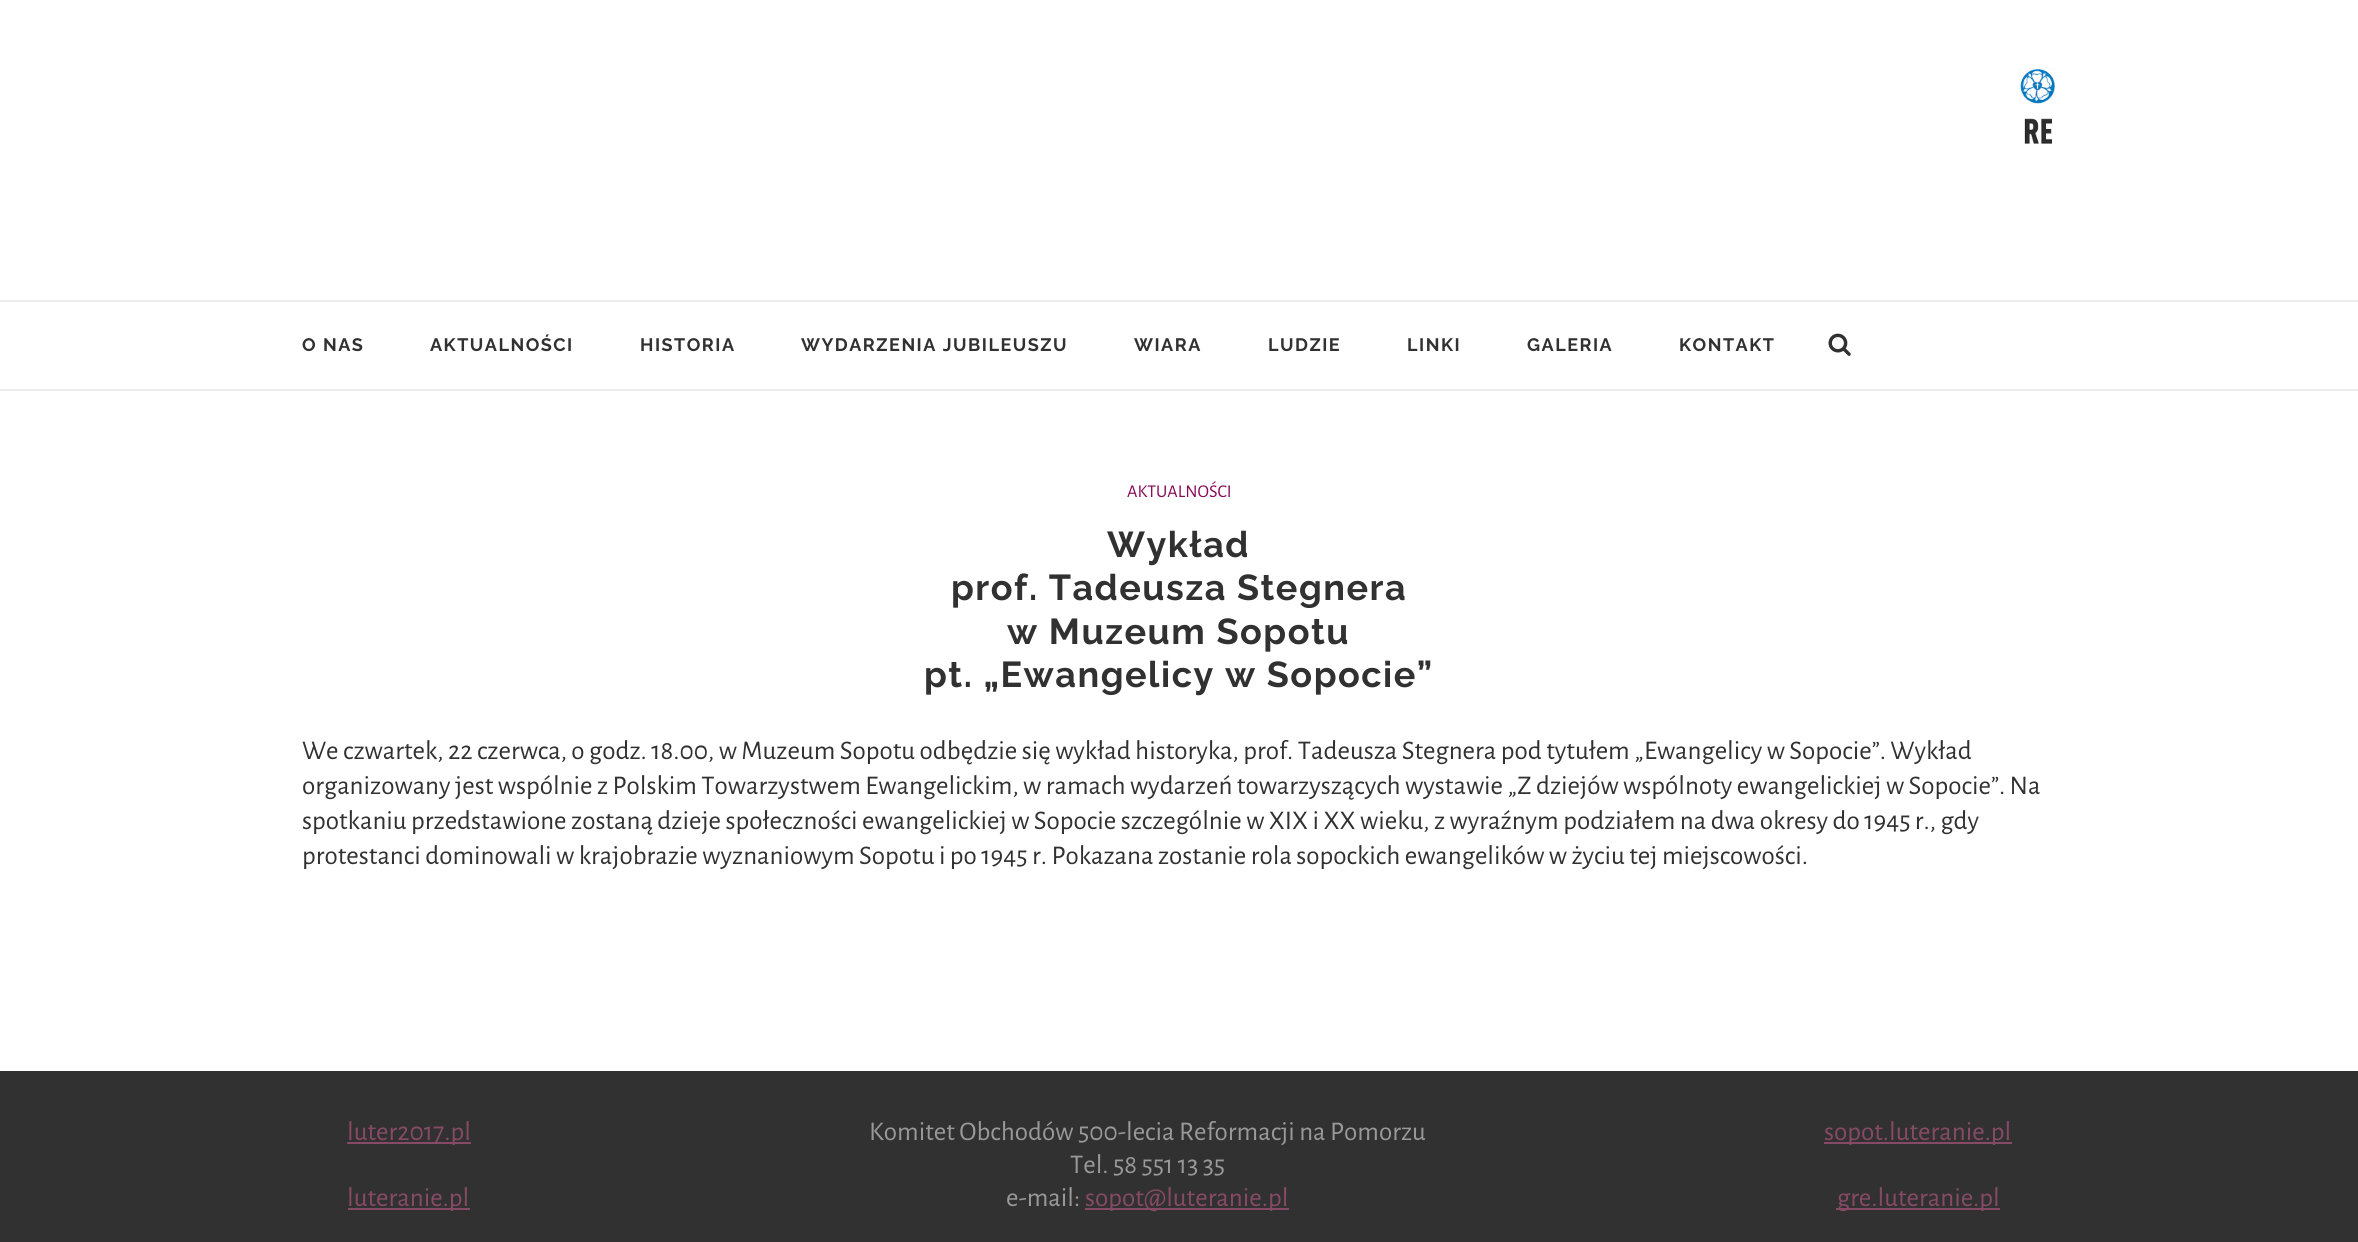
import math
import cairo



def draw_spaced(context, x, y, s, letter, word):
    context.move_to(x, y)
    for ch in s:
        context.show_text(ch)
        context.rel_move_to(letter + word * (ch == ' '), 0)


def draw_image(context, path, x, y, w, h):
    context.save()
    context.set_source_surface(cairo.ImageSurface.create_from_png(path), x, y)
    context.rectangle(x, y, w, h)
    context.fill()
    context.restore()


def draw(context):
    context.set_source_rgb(1, 1, 1)
    context.paint()
    draw_image(context, "images/1.png", 2019, 68, 36, 36)
    draw_image(context, "images/2.png", 2024, 118, 29, 26)
    context.set_source_rgb(236 / 255, 236 / 255, 236 / 255)
    context.rectangle(0, 300, 2358, 2)
    context.fill()
    context.rectangle(0, 389, 2358, 2)
    context.fill()
    draw_image(context, "images/3.png", 1828, 333, 23, 23)
    context.set_source_rgb(49 / 255, 49 / 255, 49 / 255)
    context.rectangle(0, 1071, 2358, 171)
    context.fill()
    context.set_source_rgb(135 / 255, 74 / 255, 102 / 255)
    context.rectangle(347, 1142, 124, 2)
    context.fill()
    context.rectangle(348, 1208, 122, 2)
    context.fill()
    context.rectangle(1085, 1208, 204, 2)
    context.fill()
    context.rectangle(1824, 1142, 188, 2)
    context.fill()
    context.rectangle(1836, 1208, 164, 2)
    context.fill()
    context.select_font_face("Raleway", cairo.FontSlant.NORMAL, cairo.FontWeight.BOLD)
    context.set_font_size(18)
    context.set_source_rgb(49 / 255, 49 / 255, 49 / 255)
    draw_spaced(context, 302, 351, "O NAS", 1.5, 0)
    draw_spaced(context, 430, 351, "AKTUALNOŚCI", 1.5, 0)
    draw_spaced(context, 640, 351, "HISTORIA", 1.5, 0)
    draw_spaced(context, 801, 351, "WYDARZENIA JUBILEUSZU", 1.5, 0)
    draw_spaced(context, 1134, 351, "WIARA", 1.5, 0)
    draw_spaced(context, 1268, 351, "LUDZIE", 1.5, 0)
    draw_spaced(context, 1407, 351, "LINKI", 1.5, 0)
    draw_spaced(context, 1527, 351, "GALERIA", 1.5, 0)
    draw_spaced(context, 1679, 351, "KONTAKT", 1.5, 0)
    context.select_font_face("Alegreya Sans")
    context.set_source_rgb(135 / 255, 10 / 255, 86 / 255)
    context.move_to(1127, 497)
    context.show_text("AKTUALNOŚCI")
    context.select_font_face("Raleway", cairo.FontSlant.NORMAL, cairo.FontWeight.BOLD)
    context.set_font_size(36)
    context.set_source_rgb(49 / 255, 49 / 255, 49 / 255)
    draw_spaced(context, 1107, 557, "Wykład", 1.5, 0)
    draw_spaced(context, 951, 600, "prof. Tadeusza Stegnera", 1.5, 0)
    draw_spaced(context, 1007, 644, "w Muzeum Sopotu", 1.5, 0)
    draw_spaced(context, 924, 687, "pt. „Ewangelicy w Sopocie”", 1.5, 0)
    context.select_font_face("Alegreya Sans")
    context.set_font_size(27)
    context.move_to(302, 759)
    context.show_text("We czwartek, 22 czerwca, o godz. 18.00, w Muzeum Sopotu odbędzie się wykład historyka, prof. Tadeusza Stegnera pod tytułem „Ewangelicy w Sopocie”. Wykład")
    context.move_to(302, 794)
    context.show_text("organizowany jest wspólnie z Polskim Towarzystwem Ewangelickim, w ramach wydarzeń towarzyszących wystawie „Z dziejów wspólnoty ewangelickiej w Sopocie”. Na")
    context.move_to(302, 829)
    context.show_text("spotkaniu przedstawione zostaną dzieje społeczności ewangelickiej w Sopocie szczególnie w XIX i XX wieku, z wyraźnym podziałem na dwa okresy do 1945 r., gdy")
    context.move_to(302, 864)
    context.show_text("protestanci dominowali w krajobrazie wyznaniowym Sopotu i po 1945 r. Pokazana zostanie rola sopockich ewangelików w życiu tej miejscowości.")
    context.set_source_rgb(135 / 255, 74 / 255, 102 / 255)
    context.move_to(347, 1140)
    context.show_text("luter2017.pl")
    context.move_to(347, 1206)
    context.show_text("luteranie.pl")
    context.set_source_rgb(153 / 255, 153 / 255, 153 / 255)
    context.move_to(869, 1140)
    context.show_text("Komitet Obchodów 500-lecia Reformacji na Pomorzu")
    context.move_to(1070, 1173)
    context.show_text("Tel. 58 551 13 35")
    context.move_to(1006, 1206)
    context.show_text("e-mail:")
    context.set_source_rgb(135 / 255, 74 / 255, 102 / 255)
    context.move_to(1085, 1206)
    context.show_text("sopot@luteranie.pl")
    context.move_to(1824, 1140)
    context.show_text("sopot.luteranie.pl")
    context.move_to(1837, 1206)
    context.show_text("gre.luteranie.pl")


surface = cairo.ImageSurface(cairo.Format.RGB24, 2358, 1242)
context = cairo.Context(surface)
options = cairo.FontOptions()
options.set_hint_metrics(cairo.HintMetrics.OFF)
options.set_hint_style(cairo.HintStyle.NONE)
context.set_font_options(options)
context.set_miter_limit(4)
draw(context)
surface.write_to_png("out.png")
